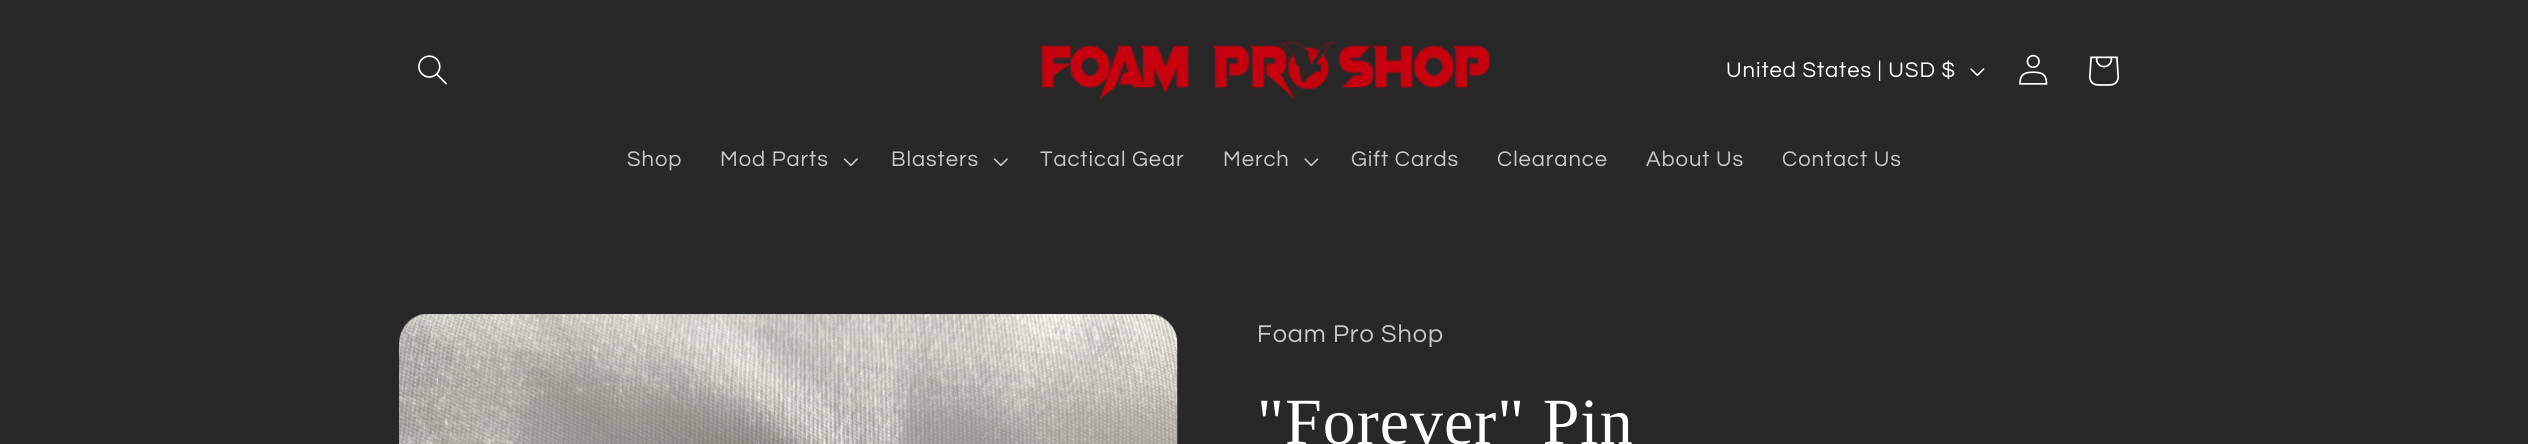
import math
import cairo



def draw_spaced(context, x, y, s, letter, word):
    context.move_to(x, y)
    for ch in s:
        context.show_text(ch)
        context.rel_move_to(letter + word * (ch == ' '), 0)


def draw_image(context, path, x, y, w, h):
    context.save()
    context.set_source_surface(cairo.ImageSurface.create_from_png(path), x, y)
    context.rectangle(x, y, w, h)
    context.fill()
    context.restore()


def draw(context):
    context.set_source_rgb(40 / 255, 40 / 255, 40 / 255)
    context.paint()
    draw_image(context, "images/1.png", 418, 55, 29, 30)
    draw_image(context, "images/2.png", 1039, 41, 451, 58)
    draw_image(context, "images/3.png", 1970, 68, 15, 9)
    draw_image(context, "images/4.png", 2019, 54, 29, 31)
    draw_image(context, "images/5.png", 2089, 56, 31, 30)
    draw_image(context, "images/6.png", 843, 158, 15, 9)
    draw_image(context, "images/6.png", 993, 158, 15, 9)
    draw_image(context, "images/7.png", 1304, 158, 15, 9)
    draw_image(context, "images/8.png", 399, 314, 779, 130)
    context.select_font_face("Questrial")
    context.set_font_size(22)
    context.set_source_rgb(1, 1, 1)
    draw_spaced(context, 1726, 77, "United States | USD $", 0.95, 0)
    context.set_source_rgb(201 / 255, 201 / 255, 201 / 255)
    draw_spaced(context, 627, 166, "Shop", 0.95, 0)
    draw_spaced(context, 720, 166, "Mod Parts", 0.95, 0)
    draw_spaced(context, 891, 166, "Blasters", 0.95, 0)
    draw_spaced(context, 1040, 166, "Tactical Gear", 0.95, 0)
    draw_spaced(context, 1223, 166, "Merch", 0.95, 0)
    draw_spaced(context, 1351, 166, "Gift Cards", 0.95, 0)
    draw_spaced(context, 1497, 166, "Clearance", 0.95, 0)
    draw_spaced(context, 1646, 166, "About Us", 0.95, 0)
    draw_spaced(context, 1782, 166, "Contact Us", 0.95, 0)
    context.set_font_size(25.25)
    draw_spaced(context, 1257, 342, "Foam Pro Shop", 0.95, 0)
    context.select_font_face("Liberation Serif")
    context.set_font_size(66)
    context.set_source_rgb(1, 1, 1)
    draw_spaced(context, 1257, 444, "\"Forever\" Pin", 1, 0)


surface = cairo.ImageSurface(cairo.Format.RGB24, 2528, 444)
context = cairo.Context(surface)
options = cairo.FontOptions()
options.set_hint_metrics(cairo.HintMetrics.OFF)
options.set_hint_style(cairo.HintStyle.NONE)
context.set_font_options(options)
context.set_miter_limit(4)
draw(context)
surface.write_to_png("out.png")
